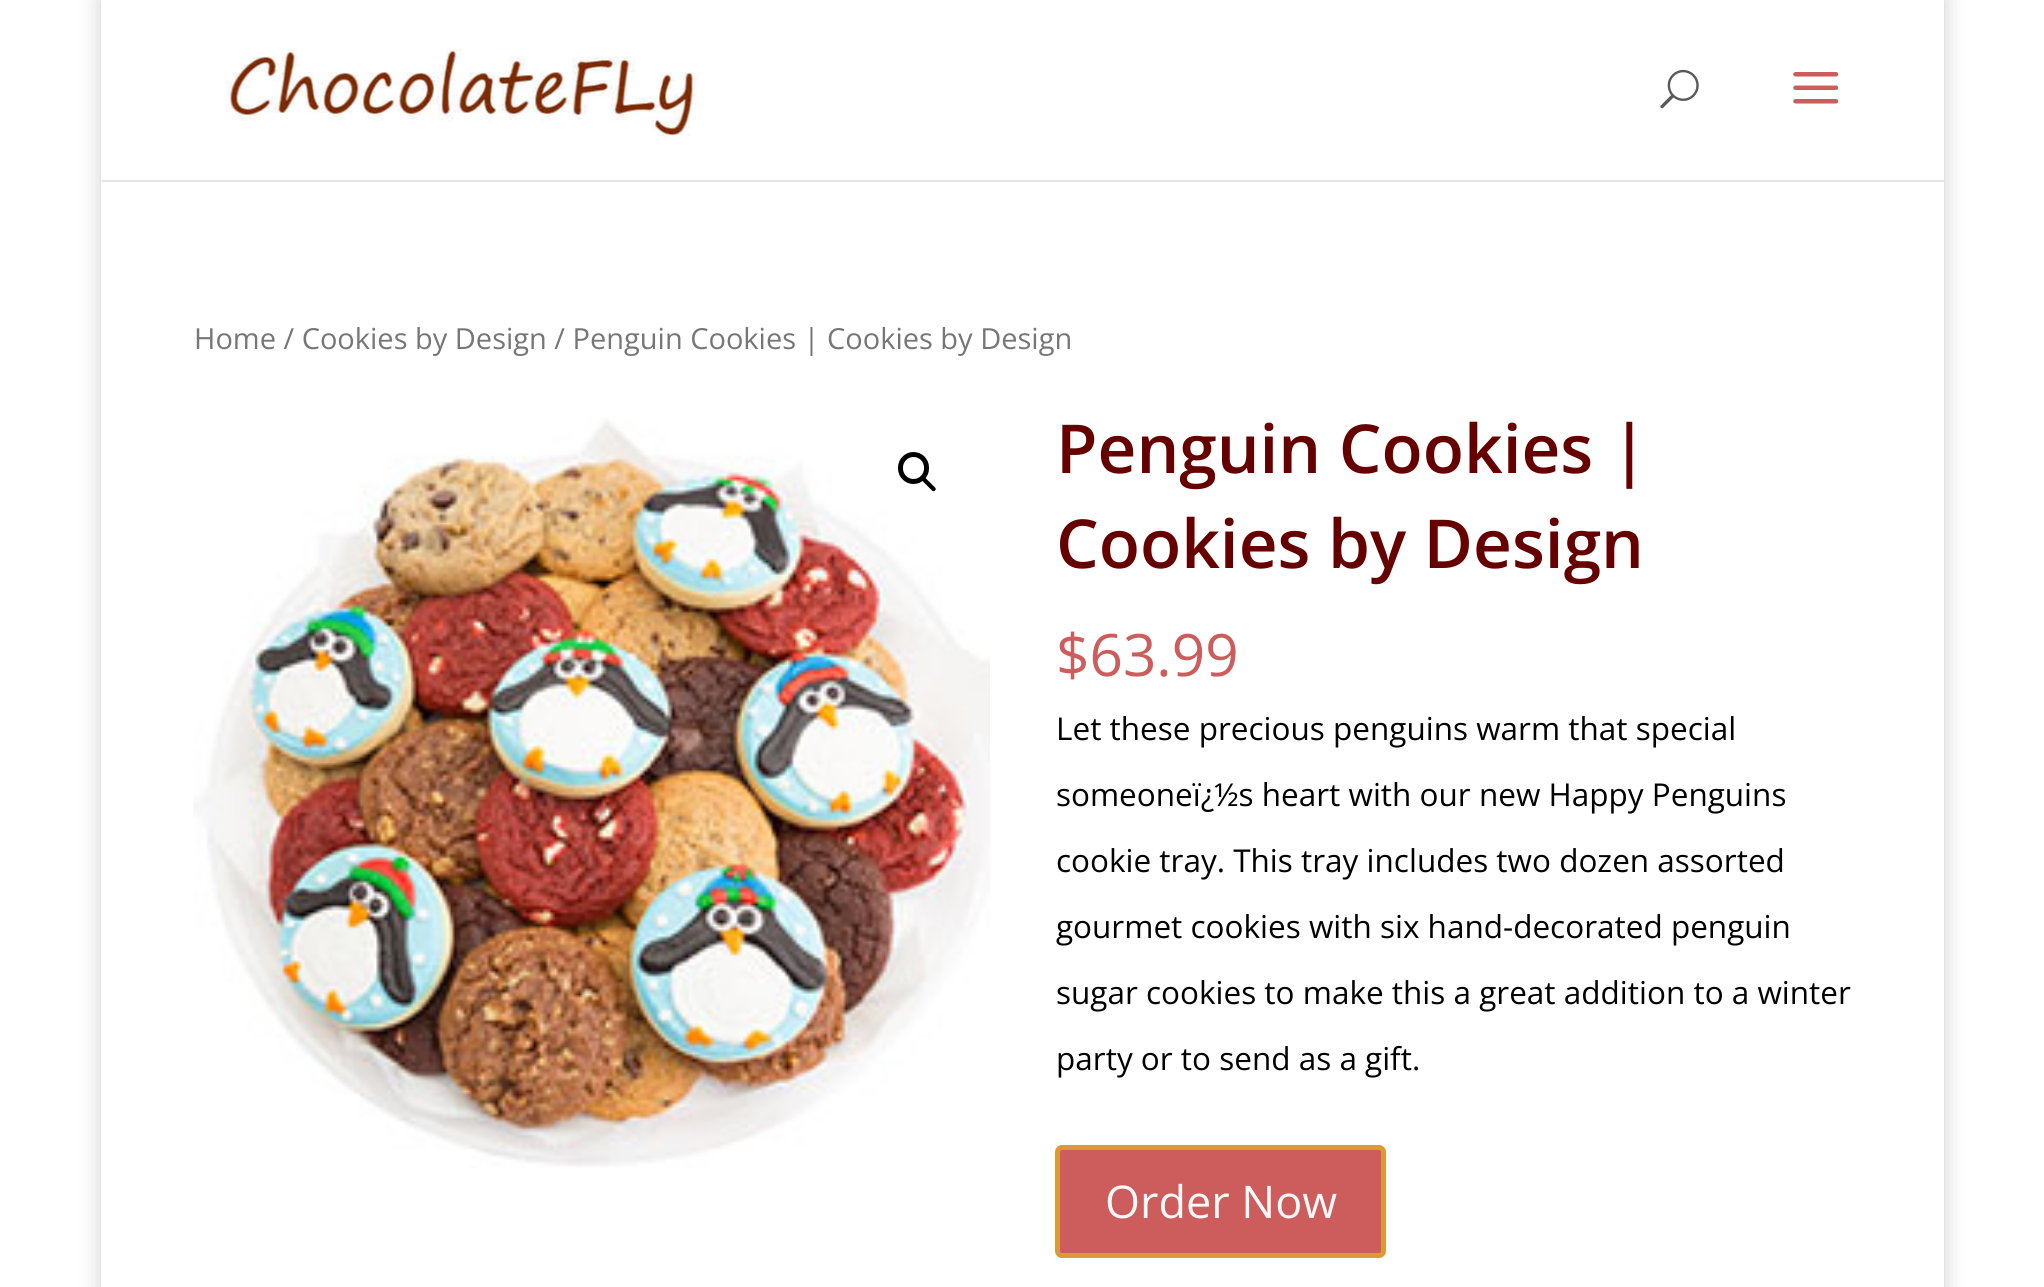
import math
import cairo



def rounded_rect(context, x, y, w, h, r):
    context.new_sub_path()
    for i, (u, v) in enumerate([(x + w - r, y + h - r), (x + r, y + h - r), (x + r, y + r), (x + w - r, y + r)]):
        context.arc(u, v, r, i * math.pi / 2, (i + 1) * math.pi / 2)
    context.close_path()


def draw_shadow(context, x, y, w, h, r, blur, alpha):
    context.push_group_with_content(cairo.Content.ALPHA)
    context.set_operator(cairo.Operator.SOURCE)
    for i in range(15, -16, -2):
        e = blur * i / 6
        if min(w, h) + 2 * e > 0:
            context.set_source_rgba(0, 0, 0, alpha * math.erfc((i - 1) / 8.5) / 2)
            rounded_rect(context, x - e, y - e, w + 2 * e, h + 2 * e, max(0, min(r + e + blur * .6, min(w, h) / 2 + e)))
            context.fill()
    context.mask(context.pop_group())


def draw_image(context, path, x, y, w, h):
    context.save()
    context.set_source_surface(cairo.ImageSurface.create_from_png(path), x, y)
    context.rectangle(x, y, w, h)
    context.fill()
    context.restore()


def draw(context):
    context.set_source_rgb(1, 1, 1)
    context.paint()
    context.set_source_rgb(0, 0, 0)
    draw_shadow(context, 101, -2, 1843, 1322, 0, 11, 0.2)
    context.set_source_rgb(230 / 255, 230 / 255, 230 / 255)
    context.new_path()
    context.move_to(101, 2)
    context.line_to(101, 182)
    context.line_to(1944, 182)
    context.line_to(1944, 180)
    context.line_to(101, 180)
    context.close_path()
    context.fill()
    context.set_source_rgb(1, 1, 1)
    context.rectangle(101, 0, 1843, 180)
    context.fill()
    draw_image(context, "images/1.png", 226, 48, 472, 89)
    draw_image(context, "images/2.png", 1660, 69, 39, 40)
    draw_image(context, "images/3.png", 1793, 72, 46, 32)
    context.rectangle(101, 182, 1843, 1105)
    context.fill()
    draw_image(context, "images/4.png", 193, 418, 797, 750)
    rounded_rect(context, 900.5, 454.5, 26, 27, 13)
    context.set_source_rgb(0, 0, 0)
    context.set_line_width(5)
    context.stroke()
    context.new_path()
    context.move_to(922.5, 478)
    context.curve_to(923, 477, 924.5, 477, 925.5, 478)
    context.line_to(935, 487.5)
    context.curve_to(936, 488.5, 936, 490, 935, 490.5)
    context.curve_to(934, 491.5, 933, 491.5, 932, 490.5)
    context.line_to(922.5, 481)
    context.curve_to(921.5, 480.5, 921.5, 479, 922.5, 478)
    context.close_path()
    context.fill()
    context.set_source_rgb(205 / 255, 92 / 255, 92 / 255)
    rounded_rect(context, 1057.5, 1147.5, 326, 108, 4.5)
    context.fill_preserve()
    context.set_source_rgb(221 / 255, 153 / 255, 51 / 255)
    context.stroke()
    context.select_font_face("Open Sans")
    context.set_font_size(29)
    context.set_source_rgb(118 / 255, 118 / 255, 118 / 255)
    context.move_to(194, 349)
    context.show_text("Home / Cookies by Design / Penguin Cookies | Cookies by Design")
    context.select_font_face("Open Sans SemiBold")
    context.set_font_size(67.5)
    context.set_source_rgb(102 / 255, 0, 0)
    context.move_to(1056, 473)
    context.show_text("Penguin Cookies |")
    context.move_to(1056, 568)
    context.show_text("Cookies by Design")
    context.select_font_face("Open Sans")
    context.set_font_size(58.5)
    context.set_source_rgb(205 / 255, 92 / 255, 92 / 255)
    context.move_to(1056, 676)
    context.show_text("$63.99")
    context.set_font_size(31.5)
    context.set_source_rgb(0, 0, 0)
    context.move_to(1056, 740)
    context.show_text("Let these precious penguins warm that special")
    context.move_to(1056, 806)
    context.show_text("someoneï¿½s heart with our new Happy Penguins")
    context.move_to(1056, 872)
    context.show_text("cookie tray. This tray includes two dozen assorted")
    context.move_to(1056, 938)
    context.show_text("gourmet cookies with six hand-decorated penguin")
    context.move_to(1056, 1004)
    context.show_text("sugar cookies to make this a great addition to a winter")
    context.move_to(1056, 1070)
    context.show_text("party or to send as a gift.")
    context.set_font_size(45)
    context.set_source_rgb(1, 249 / 255, 249 / 255)
    context.move_to(1105, 1218)
    context.show_text("Order Now")


surface = cairo.ImageSurface(cairo.Format.RGB24, 2044, 1287)
context = cairo.Context(surface)
options = cairo.FontOptions()
options.set_hint_metrics(cairo.HintMetrics.OFF)
options.set_hint_style(cairo.HintStyle.NONE)
context.set_font_options(options)
context.set_miter_limit(4)
draw(context)
surface.write_to_png("out.png")
